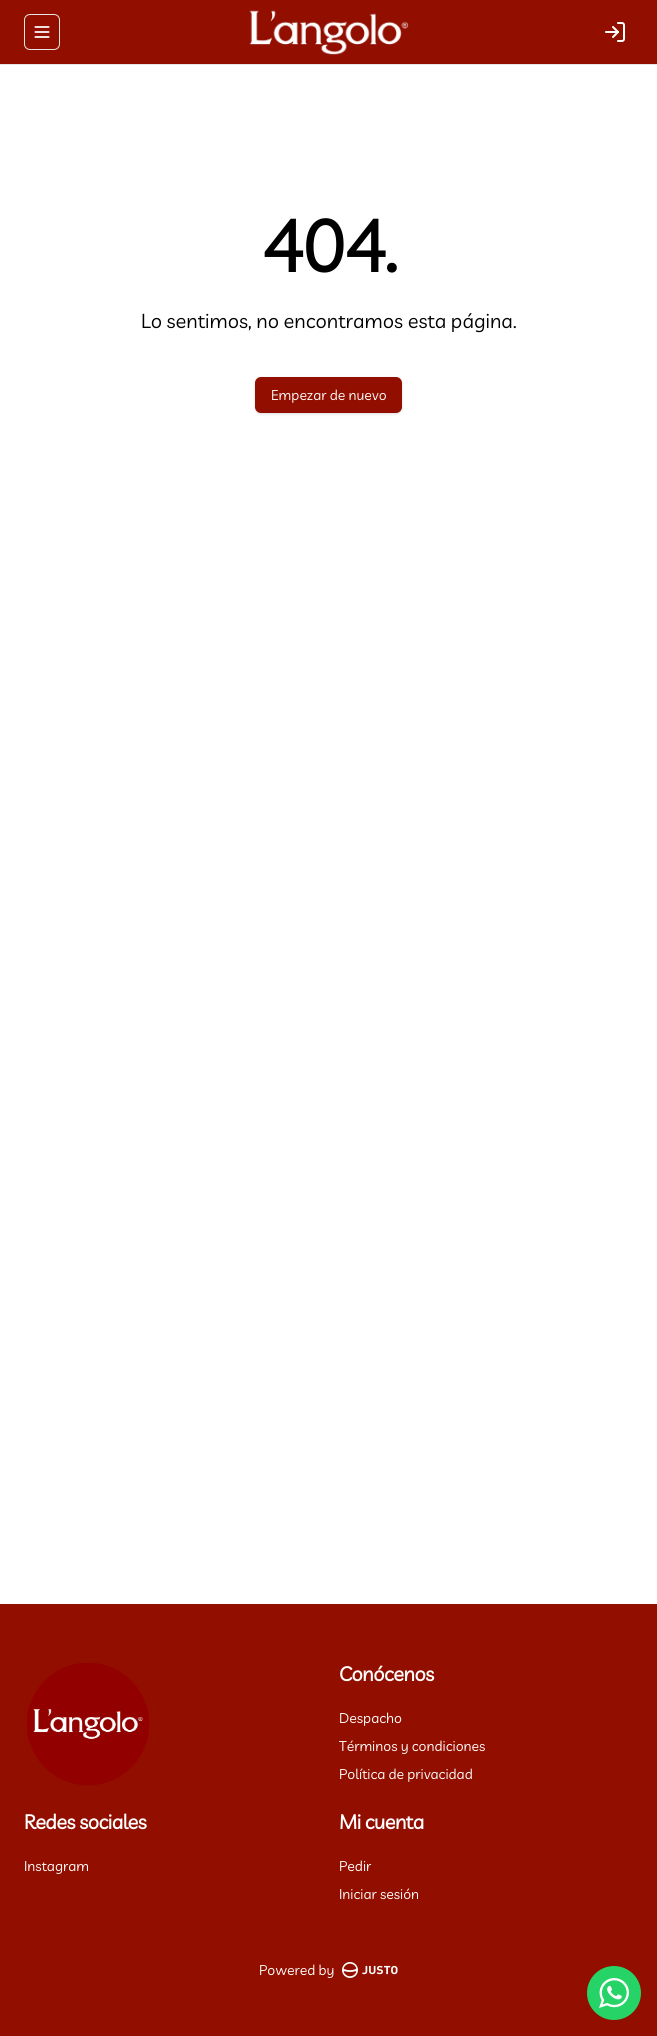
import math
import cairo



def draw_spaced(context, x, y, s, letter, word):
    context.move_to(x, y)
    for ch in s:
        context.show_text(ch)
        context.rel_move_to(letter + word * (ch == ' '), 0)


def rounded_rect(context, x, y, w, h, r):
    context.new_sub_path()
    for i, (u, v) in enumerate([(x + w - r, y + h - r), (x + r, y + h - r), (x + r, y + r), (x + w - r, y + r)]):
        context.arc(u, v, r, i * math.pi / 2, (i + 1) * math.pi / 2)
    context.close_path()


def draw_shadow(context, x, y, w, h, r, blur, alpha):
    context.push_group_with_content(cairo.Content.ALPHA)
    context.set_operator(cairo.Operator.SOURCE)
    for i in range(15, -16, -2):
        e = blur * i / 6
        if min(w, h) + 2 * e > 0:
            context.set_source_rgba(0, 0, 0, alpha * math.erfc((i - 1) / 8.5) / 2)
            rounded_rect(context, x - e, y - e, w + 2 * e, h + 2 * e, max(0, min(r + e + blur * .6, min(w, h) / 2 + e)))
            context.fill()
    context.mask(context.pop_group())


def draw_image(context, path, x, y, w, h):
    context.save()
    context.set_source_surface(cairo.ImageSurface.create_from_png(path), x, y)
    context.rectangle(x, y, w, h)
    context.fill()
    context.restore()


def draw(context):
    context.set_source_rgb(1, 1, 1)
    context.paint()
    context.set_source_rgb(146 / 255, 15 / 255, 0)
    context.rectangle(0, 0, 657, 64)
    context.fill()
    context.set_source_rgb(229 / 255, 229 / 255, 229 / 255)
    context.rectangle(0, 64, 657, 1)
    context.fill()
    rounded_rect(context, 24.5, 14.5, 35, 35, 5.5)
    context.set_line_width(1)
    context.stroke()
    draw_image(context, "images/1.png", 34, 26, 16, 12)
    draw_image(context, "images/2.png", 249, 10, 160, 45)
    draw_image(context, "images/3.png", 605, 22, 20, 20)
    context.set_source_rgb(0, 0, 0)
    draw_shadow(context, 256, 379, 145, 34, 5, 1, 0.1)
    draw_shadow(context, 255, 378, 147, 36, 6, 1.5, 0.1)
    context.set_source_rgb(146 / 255, 15 / 255, 0)
    rounded_rect(context, 255, 377, 147, 36, 6)
    context.fill()
    context.rectangle(0, 1604, 657, 432)
    context.fill()
    draw_image(context, "images/4.png", 27, 1663, 123, 123)
    draw_image(context, "images/5.png", 342, 1962, 56, 16)
    context.set_source_rgb(37 / 255, 211 / 255, 102 / 255)
    context.arc(614, 1993, 27, 0, 2 * math.pi)
    context.fill()
    draw_image(context, "images/6.png", 599, 1978, 30, 30)
    context.select_font_face("Livvic", cairo.FontSlant.NORMAL, cairo.FontWeight.BOLD)
    context.set_font_size(72)
    context.set_source_rgb(0, 0, 0)
    draw_spaced(context, 261, 272, "404.", -2, 0)
    context.select_font_face("Livvic")
    context.set_font_size(20)
    context.move_to(141, 328)
    context.show_text("Lo sentimos, no encontramos esta página.")
    context.set_font_size(14)
    context.set_source_rgb(1, 1, 1)
    context.move_to(271, 400)
    context.show_text("Empezar de nuevo")
    context.select_font_face("Livvic", cairo.FontSlant.NORMAL, cairo.FontWeight.BOLD)
    context.set_font_size(20)
    draw_spaced(context, 339, 1681, "Conócenos", -0.5, 0)
    context.select_font_face("Livvic")
    context.set_font_size(14)
    context.move_to(339, 1723)
    context.show_text("Despacho")
    context.move_to(339, 1751)
    context.show_text("Términos y condiciones")
    context.move_to(339, 1779)
    context.show_text("Política de privacidad")
    context.select_font_face("Livvic", cairo.FontSlant.NORMAL, cairo.FontWeight.BOLD)
    context.set_font_size(20)
    draw_spaced(context, 24, 1829, "Redes sociales", -0.5, 0)
    context.select_font_face("Livvic")
    context.set_font_size(14)
    context.move_to(24, 1871)
    context.show_text("Instagram")
    context.select_font_face("Livvic", cairo.FontSlant.NORMAL, cairo.FontWeight.BOLD)
    context.set_font_size(20)
    draw_spaced(context, 339, 1829, "Mi cuenta", -0.5, 0)
    context.select_font_face("Livvic")
    context.set_font_size(14)
    context.move_to(339, 1871)
    context.show_text("Pedir")
    context.move_to(339, 1899)
    context.show_text("Iniciar sesión")
    context.move_to(259, 1975)
    context.show_text("Powered by")


surface = cairo.ImageSurface(cairo.Format.RGB24, 657, 2036)
context = cairo.Context(surface)
options = cairo.FontOptions()
options.set_hint_metrics(cairo.HintMetrics.OFF)
options.set_hint_style(cairo.HintStyle.NONE)
context.set_font_options(options)
context.set_miter_limit(4)
draw(context)
surface.write_to_png("out.png")
